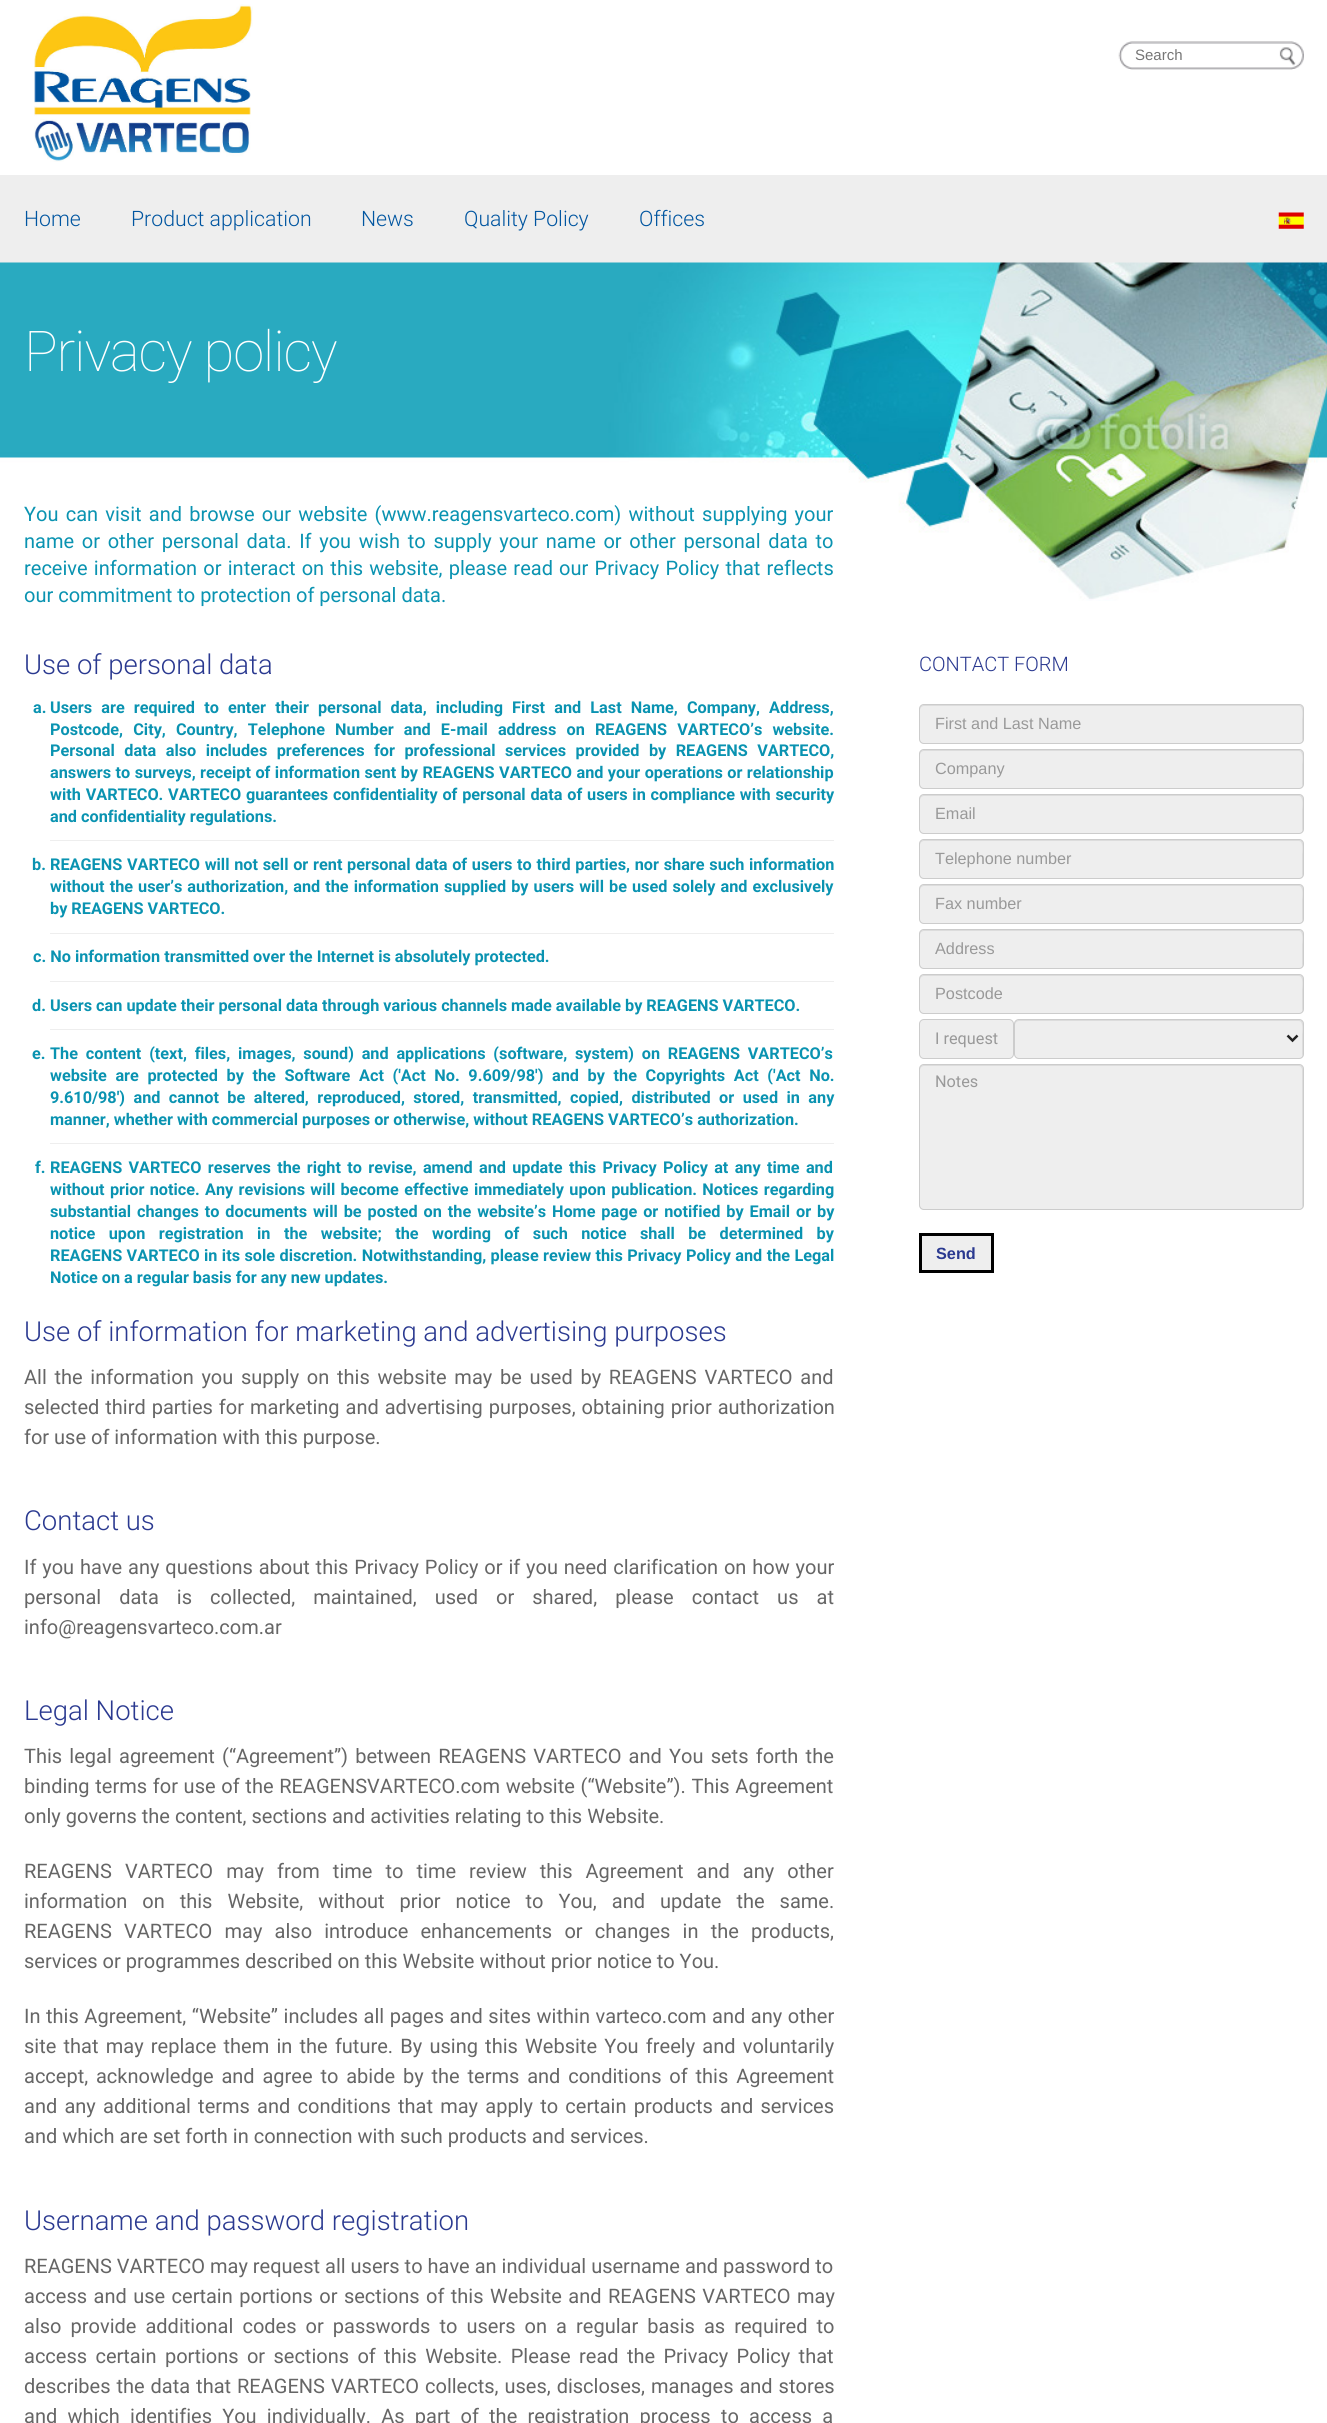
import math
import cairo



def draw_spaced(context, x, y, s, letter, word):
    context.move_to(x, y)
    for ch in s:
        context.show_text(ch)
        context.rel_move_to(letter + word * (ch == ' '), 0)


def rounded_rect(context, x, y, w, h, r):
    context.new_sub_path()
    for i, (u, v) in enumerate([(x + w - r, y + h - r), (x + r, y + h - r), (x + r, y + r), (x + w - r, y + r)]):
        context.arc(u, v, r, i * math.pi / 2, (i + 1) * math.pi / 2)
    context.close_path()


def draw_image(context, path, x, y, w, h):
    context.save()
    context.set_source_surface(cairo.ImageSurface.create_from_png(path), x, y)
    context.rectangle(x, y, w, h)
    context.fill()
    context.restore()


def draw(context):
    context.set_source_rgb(1, 1, 1)
    context.paint()
    draw_image(context, "images/1.png", 34, 4, 219, 158)
    draw_image(context, "images/2.png", 1118, 41, 186, 29)
    context.set_source_rgb(238 / 255, 238 / 255, 238 / 255)
    context.rectangle(0, 175, 1327, 88)
    context.fill()
    draw_image(context, "images/3.png", 1278, 212, 26, 17)
    draw_image(context, "images/4.png", 0, 262, 1327, 339)
    context.rectangle(50, 840, 784, 1)
    context.fill()
    context.rectangle(50, 933, 784, 1)
    context.fill()
    context.rectangle(50, 981, 784, 1)
    context.fill()
    context.rectangle(50, 1029, 784, 1)
    context.fill()
    context.rectangle(50, 1143, 784, 1)
    context.fill()
    rounded_rect(context, 919, 704, 385, 40, 5)
    context.fill()
    context.set_source_rgb(220 / 255, 220 / 255, 220 / 255)
    context.new_path()
    context.move_to(924, 706)
    context.line_to(1299, 706)
    context.curve_to(1304, 706, 1302, 718, 1302, 720)
    context.line_to(1302, 742)
    context.curve_to(1302, 741, 1303, 740, 1303, 739)
    context.line_to(1303, 709)
    context.curve_to(1303, 707, 1301, 705, 1299, 705)
    context.line_to(924, 705)
    context.curve_to(922, 705, 920, 707, 920, 709)
    context.line_to(920, 710)
    context.curve_to(920, 708, 922, 706, 924, 706)
    context.close_path()
    context.fill()
    rounded_rect(context, 919.5, 704.5, 384, 39, 4.5)
    context.set_source_rgb(204 / 255, 204 / 255, 204 / 255)
    context.set_line_width(1)
    context.stroke()
    context.set_source_rgb(238 / 255, 238 / 255, 238 / 255)
    rounded_rect(context, 919, 749, 385, 40, 5)
    context.fill()
    context.set_source_rgb(220 / 255, 220 / 255, 220 / 255)
    context.new_path()
    context.move_to(924, 751)
    context.line_to(1299, 751)
    context.curve_to(1304, 751, 1302, 763, 1302, 765)
    context.line_to(1302, 787)
    context.curve_to(1302, 786, 1303, 785, 1303, 784)
    context.line_to(1303, 754)
    context.curve_to(1303, 752, 1301, 750, 1299, 750)
    context.line_to(924, 750)
    context.curve_to(922, 750, 920, 752, 920, 754)
    context.line_to(920, 755)
    context.curve_to(920, 753, 922, 751, 924, 751)
    context.close_path()
    context.fill()
    rounded_rect(context, 919.5, 749.5, 384, 39, 4.5)
    context.set_source_rgb(204 / 255, 204 / 255, 204 / 255)
    context.stroke()
    context.set_source_rgb(238 / 255, 238 / 255, 238 / 255)
    rounded_rect(context, 919, 794, 385, 40, 5)
    context.fill()
    context.set_source_rgb(220 / 255, 220 / 255, 220 / 255)
    context.new_path()
    context.move_to(924, 796)
    context.line_to(1299, 796)
    context.curve_to(1304, 796, 1302, 808, 1302, 810)
    context.line_to(1302, 832)
    context.curve_to(1302, 831, 1303, 830, 1303, 829)
    context.line_to(1303, 799)
    context.curve_to(1303, 797, 1301, 795, 1299, 795)
    context.line_to(924, 795)
    context.curve_to(922, 795, 920, 797, 920, 799)
    context.line_to(920, 800)
    context.curve_to(920, 798, 922, 796, 924, 796)
    context.close_path()
    context.fill()
    rounded_rect(context, 919.5, 794.5, 384, 39, 4.5)
    context.set_source_rgb(204 / 255, 204 / 255, 204 / 255)
    context.stroke()
    context.set_source_rgb(238 / 255, 238 / 255, 238 / 255)
    rounded_rect(context, 919, 839, 385, 40, 5)
    context.fill()
    context.set_source_rgb(220 / 255, 220 / 255, 220 / 255)
    context.new_path()
    context.move_to(924, 841)
    context.line_to(1299, 841)
    context.curve_to(1304, 841, 1302, 853, 1302, 855)
    context.line_to(1302, 877)
    context.curve_to(1302, 876, 1303, 875, 1303, 874)
    context.line_to(1303, 844)
    context.curve_to(1303, 842, 1301, 840, 1299, 840)
    context.line_to(924, 840)
    context.curve_to(922, 840, 920, 842, 920, 844)
    context.line_to(920, 845)
    context.curve_to(920, 843, 922, 841, 924, 841)
    context.close_path()
    context.fill()
    rounded_rect(context, 919.5, 839.5, 384, 39, 4.5)
    context.set_source_rgb(204 / 255, 204 / 255, 204 / 255)
    context.stroke()
    context.set_source_rgb(238 / 255, 238 / 255, 238 / 255)
    rounded_rect(context, 919, 884, 385, 40, 5)
    context.fill()
    context.set_source_rgb(220 / 255, 220 / 255, 220 / 255)
    context.new_path()
    context.move_to(924, 886)
    context.line_to(1299, 886)
    context.curve_to(1304, 886, 1302, 898, 1302, 900)
    context.line_to(1302, 922)
    context.curve_to(1302, 921, 1303, 920, 1303, 919)
    context.line_to(1303, 889)
    context.curve_to(1303, 887, 1301, 885, 1299, 885)
    context.line_to(924, 885)
    context.curve_to(922, 885, 920, 887, 920, 889)
    context.line_to(920, 890)
    context.curve_to(920, 888, 922, 886, 924, 886)
    context.close_path()
    context.fill()
    rounded_rect(context, 919.5, 884.5, 384, 39, 4.5)
    context.set_source_rgb(204 / 255, 204 / 255, 204 / 255)
    context.stroke()
    context.set_source_rgb(238 / 255, 238 / 255, 238 / 255)
    rounded_rect(context, 919, 929, 385, 40, 5)
    context.fill()
    context.set_source_rgb(220 / 255, 220 / 255, 220 / 255)
    context.new_path()
    context.move_to(924, 931)
    context.line_to(1299, 931)
    context.curve_to(1304, 931, 1302, 943, 1302, 945)
    context.line_to(1302, 967)
    context.curve_to(1302, 966, 1303, 965, 1303, 964)
    context.line_to(1303, 934)
    context.curve_to(1303, 932, 1301, 930, 1299, 930)
    context.line_to(924, 930)
    context.curve_to(922, 930, 920, 932, 920, 934)
    context.line_to(920, 935)
    context.curve_to(920, 933, 922, 931, 924, 931)
    context.close_path()
    context.fill()
    rounded_rect(context, 919.5, 929.5, 384, 39, 4.5)
    context.set_source_rgb(204 / 255, 204 / 255, 204 / 255)
    context.stroke()
    context.set_source_rgb(238 / 255, 238 / 255, 238 / 255)
    rounded_rect(context, 919, 974, 385, 40, 5)
    context.fill()
    context.set_source_rgb(220 / 255, 220 / 255, 220 / 255)
    context.new_path()
    context.move_to(924, 976)
    context.line_to(1299, 976)
    context.curve_to(1304, 976, 1302, 988, 1302, 990)
    context.line_to(1302, 1012)
    context.curve_to(1302, 1011, 1303, 1010, 1303, 1009)
    context.line_to(1303, 979)
    context.curve_to(1303, 977, 1301, 975, 1299, 975)
    context.line_to(924, 975)
    context.curve_to(922, 975, 920, 977, 920, 979)
    context.line_to(920, 980)
    context.curve_to(920, 978, 922, 976, 924, 976)
    context.close_path()
    context.fill()
    rounded_rect(context, 919.5, 974.5, 384, 39, 4.5)
    context.set_source_rgb(204 / 255, 204 / 255, 204 / 255)
    context.stroke()
    context.set_source_rgb(238 / 255, 238 / 255, 238 / 255)
    rounded_rect(context, 919.5, 1019.5, 94, 39, 4.5)
    context.fill_preserve()
    context.set_source_rgb(204 / 255, 204 / 255, 204 / 255)
    context.stroke()
    context.set_source_rgb(238 / 255, 238 / 255, 238 / 255)
    rounded_rect(context, 1014, 1019, 290, 40, 5)
    context.fill()
    context.set_source_rgb(220 / 255, 220 / 255, 220 / 255)
    context.new_path()
    context.move_to(1019, 1021)
    context.line_to(1299, 1021)
    context.curve_to(1304, 1021, 1302, 1033, 1302, 1035)
    context.line_to(1302, 1057)
    context.curve_to(1302, 1056, 1303, 1055, 1303, 1054)
    context.line_to(1303, 1024)
    context.curve_to(1303, 1022, 1301, 1020, 1299, 1020)
    context.line_to(1019, 1020)
    context.curve_to(1017, 1020, 1015, 1022, 1015, 1024)
    context.line_to(1015, 1025)
    context.curve_to(1015, 1023, 1017, 1021, 1019, 1021)
    context.close_path()
    context.fill()
    rounded_rect(context, 1014.5, 1019.5, 289, 39, 4.5)
    context.set_source_rgb(204 / 255, 204 / 255, 204 / 255)
    context.stroke()
    context.new_path()
    context.move_to(1287.5, 1035.5)
    context.line_to(1292.5, 1040.5)
    context.line_to(1297.5, 1035.5)
    context.set_source_rgb(34 / 255, 34 / 255, 34 / 255)
    context.set_line_width(2.5)
    context.stroke()
    context.set_source_rgb(238 / 255, 238 / 255, 238 / 255)
    rounded_rect(context, 919, 1064, 385, 146, 5)
    context.fill()
    context.set_source_rgb(220 / 255, 220 / 255, 220 / 255)
    context.new_path()
    context.move_to(924, 1066)
    context.line_to(1299, 1066)
    context.curve_to(1301, 1066, 1302, 1068, 1302, 1070)
    context.line_to(1302, 1206)
    context.line_to(1302, 1208)
    context.curve_to(1302, 1207, 1303, 1206, 1303, 1205)
    context.line_to(1303, 1069)
    context.curve_to(1303, 1067, 1301, 1065, 1299, 1065)
    context.line_to(924, 1065)
    context.curve_to(922, 1065, 920, 1067, 920, 1069)
    context.line_to(920, 1070)
    context.curve_to(920, 1068, 922, 1066, 924, 1066)
    context.close_path()
    context.fill()
    rounded_rect(context, 919.5, 1064.5, 384, 145, 4.5)
    context.set_source_rgb(204 / 255, 204 / 255, 204 / 255)
    context.set_line_width(1)
    context.stroke()
    context.set_source_rgb(238 / 255, 238 / 255, 238 / 255)
    context.rectangle(920.5, 1234.5, 72, 37)
    context.fill_preserve()
    context.set_source_rgb(0, 0, 0)
    context.set_line_width(3)
    context.stroke()
    context.select_font_face("Liberation Sans")
    context.set_font_size(15)
    context.set_source_rgb(117 / 255, 117 / 255, 117 / 255)
    context.move_to(1135, 60)
    context.show_text("Search")
    context.select_font_face("Roboto Light")
    context.set_font_size(21.25)
    context.set_source_rgb(0, 85 / 255, 160 / 255)
    context.move_to(24, 226)
    context.show_text("Home")
    context.move_to(131, 226)
    context.show_text("Product application")
    context.move_to(361, 226)
    context.show_text("News")
    context.move_to(464, 226)
    context.show_text("Quality Policy")
    context.move_to(639, 226)
    context.show_text("Offices")
    context.select_font_face("Roboto Thin")
    context.set_font_size(56.25)
    context.set_source_rgb(1, 1, 1)
    draw_spaced(context, 24, 371, "Privacy policy", -1.25, 0)
    context.select_font_face("Roboto")
    context.set_font_size(20)
    context.set_source_rgb(10 / 255, 147 / 255, 177 / 255)
    draw_spaced(context, 24, 521, "You can visit and browse our website (www.reagensvarteco.com) without supplying your", 0, 2.25)
    draw_spaced(context, 24, 548, "name or other personal data. If you wish to supply your name or other personal data to", 0, 2.75)
    draw_spaced(context, 24, 575, "receive information or interact on this website, please read our Privacy Policy that reflects", 0, 1.25)
    context.move_to(24, 602)
    context.show_text("our commitment to protection of personal data.")
    context.select_font_face("Roboto Light")
    context.set_font_size(27.5)
    context.set_source_rgb(42 / 255, 57 / 255, 144 / 255)
    context.move_to(24, 674)
    context.show_text("Use of personal data")
    context.select_font_face("Roboto", cairo.FontSlant.NORMAL, cairo.FontWeight.BOLD)
    context.set_font_size(16.25)
    context.set_source_rgb(10 / 255, 147 / 255, 177 / 255)
    context.move_to(33, 713)
    context.show_text("a.")
    draw_spaced(context, 50, 713, "Users are required to enter their personal data, including First and Last Name, Company, Address,", 0, 5.1)
    draw_spaced(context, 50, 735, "Postcode, City, Country, Telephone Number and E-mail address on REAGENS VARTECO’s website.", 0, 6.1)
    draw_spaced(context, 50, 756, "Personal data also includes preferences for professional services provided by REAGENS VARTECO,", 0, 5.4)
    draw_spaced(context, 50, 778, "answers to surveys, receipt of information sent by REAGENS VARTECO and your operations or relationship", 0, 0.4)
    draw_spaced(context, 50, 800, "with VARTECO. VARTECO guarantees confidentiality of personal data of users in compliance with security", 0, 0.75)
    context.move_to(50, 822)
    context.show_text("and confidentiality regulations.")
    context.move_to(32, 870)
    context.show_text("b.")
    draw_spaced(context, 50, 870, "REAGENS VARTECO will not sell or rent personal data of users to third parties, nor share such information", 0, 0.7)
    draw_spaced(context, 50, 892, "without the user’s authorization, and the information supplied by users will be used solely and exclusively", 0, 1)
    context.move_to(50, 914)
    context.show_text("by REAGENS VARTECO.")
    context.move_to(33, 962)
    context.show_text("c. No information transmitted over the Internet is absolutely protected.")
    context.move_to(32, 1011)
    context.show_text("d. Users can update their personal data through various channels made available by REAGENS VARTECO.")
    context.move_to(32, 1059)
    context.show_text("e.")
    draw_spaced(context, 50, 1059, "The content (text, files, images, sound) and applications (software, system) on REAGENS VARTECO’s", 0, 3.75)
    draw_spaced(context, 50, 1081, "website are protected by the Software Act ('Act No. 9.609/98') and by the Copyrights Act ('Act No.", 0, 4.6)
    draw_spaced(context, 50, 1103, "9.610/98') and cannot be altered, reproduced, stored, transmitted, copied, distributed or used in any", 0, 4.4)
    context.move_to(50, 1125)
    context.show_text("manner, whether with commercial purposes or otherwise, without REAGENS VARTECO’s authorization.")
    context.move_to(35, 1173)
    context.show_text("f.")
    draw_spaced(context, 50, 1173, "REAGENS VARTECO reserves the right to revise, amend and update this Privacy Policy at any time and", 0, 2.25)
    draw_spaced(context, 50, 1195, "without prior notice. Any revisions will become effective immediately upon publication. Notices regarding", 0, 1.25)
    draw_spaced(context, 50, 1217, "substantial changes to documents will be posted on the website’s Home page or notified by Email or by", 0, 1.9)
    draw_spaced(context, 50, 1239, "notice upon registration in the website; the wording of such notice shall be determined by", 0, 9.4)
    draw_spaced(context, 50, 1261, "REAGENS VARTECO in its sole discretion. Notwithstanding, please review this Privacy Policy and the Legal", 0, 0.4)
    context.move_to(50, 1283)
    context.show_text("Notice on a regular basis for any new updates.")
    context.select_font_face("Roboto Light")
    context.set_font_size(27.5)
    context.set_source_rgb(42 / 255, 57 / 255, 144 / 255)
    context.move_to(24, 1341)
    context.show_text("Use of information for marketing and advertising purposes")
    context.select_font_face("Roboto")
    context.set_font_size(20)
    context.set_source_rgb(102 / 255, 102 / 255, 102 / 255)
    draw_spaced(context, 24, 1384, "All the information you supply on this website may be used by REAGENS VARTECO and", 0, 2.75)
    draw_spaced(context, 24, 1414, "selected third parties for marketing and advertising purposes, obtaining prior authorization", 0, 1)
    context.move_to(24, 1444)
    context.show_text("for use of information with this purpose.")
    context.select_font_face("Roboto Light")
    context.set_font_size(27.5)
    context.set_source_rgb(42 / 255, 57 / 255, 144 / 255)
    context.move_to(24, 1530)
    context.show_text("Contact us")
    context.select_font_face("Roboto")
    context.set_font_size(20)
    context.set_source_rgb(102 / 255, 102 / 255, 102 / 255)
    draw_spaced(context, 24, 1574, "If you have any questions about this Privacy Policy or if you need clarification on how your", 0, 0.9)
    draw_spaced(context, 24, 1604, "personal data is collected, maintained, used or shared, please contact us at", 0, 13.1)
    context.move_to(24, 1634)
    context.show_text("info@reagensvarteco.com.ar")
    context.select_font_face("Roboto Light")
    context.set_font_size(27.5)
    context.set_source_rgb(42 / 255, 57 / 255, 144 / 255)
    context.move_to(24, 1720)
    context.show_text("Legal Notice")
    context.select_font_face("Roboto")
    context.set_font_size(20)
    context.set_source_rgb(102 / 255, 102 / 255, 102 / 255)
    draw_spaced(context, 24, 1763, "This legal agreement (“Agreement”) between REAGENS VARTECO and You sets forth the", 0, 2.25)
    draw_spaced(context, 24, 1793, "binding terms for use of the REAGENSVARTECO.com website (“Website”). This Agreement", 0, 0.75)
    context.move_to(24, 1823)
    context.show_text("only governs the content, sections and activities relating to this Website.")
    draw_spaced(context, 24, 1878, "REAGENS VARTECO may from time to time review this Agreement and any other", 0, 8.1)
    draw_spaced(context, 24, 1908, "information on this Website, without prior notice to You, and update the same.", 0, 10)
    draw_spaced(context, 24, 1938, "REAGENS VARTECO may also introduce enhancements or changes in the products,", 0, 7.25)
    context.move_to(24, 1968)
    context.show_text("services or programmes described on this Website without prior notice to You.")
    draw_spaced(context, 24, 2023, "In this Agreement, “Website” includes all pages and sites within varteco.com and any other", 0, 0.6)
    draw_spaced(context, 24, 2053, "site that may replace them in the future. By using this Website You freely and voluntarily", 0, 2.25)
    draw_spaced(context, 24, 2083, "accept, acknowledge and agree to abide by the terms and conditions of this Agreement", 0, 2.9)
    draw_spaced(context, 24, 2113, "and any additional terms and conditions that may apply to certain products and services", 0, 2.25)
    context.move_to(24, 2143)
    context.show_text("and which are set forth in connection with such products and services.")
    context.select_font_face("Roboto Light")
    context.set_font_size(27.5)
    context.set_source_rgb(42 / 255, 57 / 255, 144 / 255)
    context.move_to(24, 2230)
    context.show_text("Username and password registration")
    context.select_font_face("Roboto")
    context.set_font_size(20)
    context.set_source_rgb(102 / 255, 102 / 255, 102 / 255)
    context.move_to(24, 2273)
    context.show_text("REAGENS VARTECO may request all users to have an individual username and password to")
    draw_spaced(context, 24, 2303, "access and use certain portions or sections of this Website and REAGENS VARTECO may", 0, 1.5)
    draw_spaced(context, 24, 2333, "also provide additional codes or passwords to users on a regular basis as required to", 0, 4.1)
    draw_spaced(context, 24, 2363, "access certain portions or sections of this Website. Please read the Privacy Policy that", 0, 3.4)
    draw_spaced(context, 24, 2393, "describes the data that REAGENS VARTECO collects, uses, discloses, manages and stores", 0, 1)
    draw_spaced(context, 24, 2423, "and which identifies You individually. As part of the registration process to access a", 0, 5.25)
    context.select_font_face("Roboto Light")
    context.set_source_rgb(42 / 255, 57 / 255, 144 / 255)
    context.move_to(919, 671)
    context.show_text("CONTACT FORM")
    context.select_font_face("Liberation Sans")
    context.set_font_size(16.25)
    context.set_source_rgb(153 / 255, 153 / 255, 153 / 255)
    context.move_to(935, 729)
    context.show_text("First and Last Name")
    context.move_to(935, 774)
    context.show_text("Company")
    context.move_to(935, 819)
    context.show_text("Email")
    context.move_to(935, 864)
    context.show_text("Telephone number")
    context.move_to(935, 909)
    context.show_text("Fax number")
    context.move_to(935, 954)
    context.show_text("Address")
    context.move_to(935, 999)
    context.show_text("Postcode")
    context.select_font_face("Roboto")
    context.move_to(935, 1044)
    context.show_text("I request")
    context.move_to(935, 1087)
    context.show_text("Notes")
    context.select_font_face("Liberation Sans", cairo.FontSlant.NORMAL, cairo.FontWeight.BOLD)
    context.set_source_rgb(42 / 255, 57 / 255, 144 / 255)
    context.move_to(936, 1259)
    context.show_text("Send")


surface = cairo.ImageSurface(cairo.Format.RGB24, 1327, 2423)
context = cairo.Context(surface)
options = cairo.FontOptions()
options.set_hint_metrics(cairo.HintMetrics.OFF)
options.set_hint_style(cairo.HintStyle.NONE)
context.set_font_options(options)
context.set_miter_limit(4)
draw(context)
surface.write_to_png("out.png")
